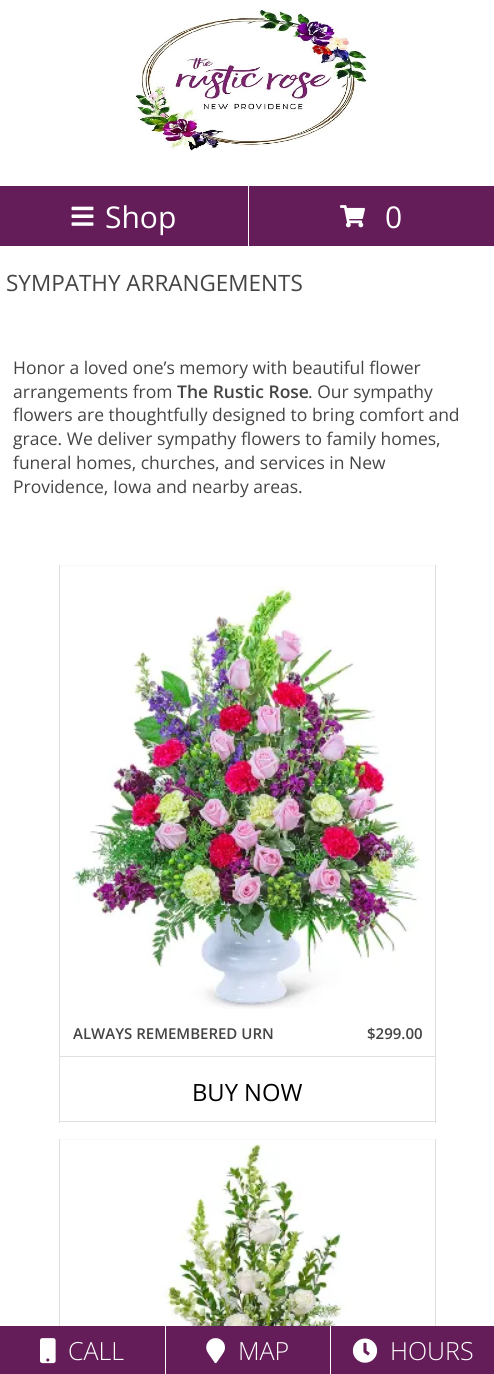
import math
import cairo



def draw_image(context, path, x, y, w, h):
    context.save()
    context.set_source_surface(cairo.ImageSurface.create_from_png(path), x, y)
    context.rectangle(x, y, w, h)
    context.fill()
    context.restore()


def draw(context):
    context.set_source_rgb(1, 1, 1)
    context.paint()
    draw_image(context, "images/1.png", 134, 9, 233, 142)
    context.set_source_rgb(100 / 255, 29 / 255, 89 / 255)
    context.rectangle(0, 186, 248, 60)
    context.fill()
    draw_image(context, "images/2.png", 71, 206, 23, 20)
    context.rectangle(249, 186, 245, 60)
    context.fill()
    draw_image(context, "images/3.png", 340, 205, 25, 23)
    context.set_source_rgb(249 / 255, 249 / 255, 249 / 255)
    context.rectangle(59, 565, 377, 1)
    context.fill()
    context.set_source_rgb(226 / 255, 222 / 255, 221 / 255)
    context.rectangle(435, 565, 1, 558)
    context.fill()
    context.rectangle(59, 1121, 377, 1)
    context.fill()
    context.rectangle(59, 565, 1, 558)
    context.fill()
    draw_image(context, "images/4.png", 70, 586, 350, 423)
    context.rectangle(60, 1056, 375, 1)
    context.fill()
    context.set_source_rgb(249 / 255, 249 / 255, 249 / 255)
    context.rectangle(59, 1139, 377, 1)
    context.fill()
    context.set_source_rgb(226 / 255, 222 / 255, 221 / 255)
    context.rectangle(435, 1139, 1, 187)
    context.fill()
    context.rectangle(59, 1139, 1, 187)
    context.fill()
    draw_image(context, "images/5.png", 160, 1144, 203, 182)
    context.set_source_rgb(100 / 255, 29 / 255, 89 / 255)
    context.rectangle(0, 1326, 165, 48)
    context.fill()
    draw_image(context, "images/6.png", 40, 1338, 16, 26)
    context.rectangle(166, 1326, 164, 48)
    context.fill()
    draw_image(context, "images/7.png", 206, 1338, 19, 26)
    context.rectangle(331, 1326, 163, 48)
    context.fill()
    draw_image(context, "images/8.png", 352, 1338, 26, 25)
    context.select_font_face("Open Sans")
    context.set_font_size(30)
    context.set_source_rgb(1, 1, 1)
    context.move_to(105, 228)
    context.show_text("Shop")
    context.move_to(385, 228)
    context.show_text("0")
    context.set_font_size(22.5)
    context.set_source_rgb(68 / 255, 68 / 255, 68 / 255)
    context.move_to(6, 291)
    context.show_text("SYMPATHY ARRANGEMENTS")
    context.set_font_size(17.5)
    context.move_to(13, 374)
    context.show_text("Honor a loved one’s memory with beautiful flower")
    context.move_to(13, 398)
    context.show_text("arrangements from")
    context.select_font_face("Open Sans SemiBold")
    context.move_to(177, 398)
    context.show_text("The Rustic Rose")
    context.select_font_face("Open Sans")
    context.move_to(308, 398)
    context.show_text(". Our sympathy")
    context.move_to(13, 421)
    context.show_text("flowers are thoughtfully designed to bring comfort and")
    context.move_to(13, 445)
    context.show_text("grace. We deliver sympathy flowers to family homes,")
    context.move_to(13, 469)
    context.show_text("funeral homes, churches, and services in New")
    context.move_to(13, 493)
    context.show_text("Providence, Iowa and nearby areas.")
    context.select_font_face("Open Sans SemiBold")
    context.set_font_size(15)
    context.move_to(73, 1039)
    context.show_text("ALWAYS REMEMBERED URN")
    context.move_to(367, 1039)
    context.show_text("$299.00")
    context.select_font_face("Open Sans")
    context.set_font_size(23.75)
    context.set_source_rgb(0, 0, 0)
    context.move_to(192, 1101)
    context.show_text("BUY NOW")
    context.select_font_face("Open Sans Light")
    context.set_font_size(25)
    context.set_source_rgb(1, 1, 1)
    context.move_to(68, 1360)
    context.show_text("CALL")
    context.move_to(238, 1360)
    context.show_text("MAP")
    context.move_to(390, 1360)
    context.show_text("HOURS")


surface = cairo.ImageSurface(cairo.Format.RGB24, 494, 1374)
context = cairo.Context(surface)
options = cairo.FontOptions()
options.set_hint_metrics(cairo.HintMetrics.OFF)
options.set_hint_style(cairo.HintStyle.NONE)
context.set_font_options(options)
context.set_miter_limit(4)
draw(context)
surface.write_to_png("out.png")
